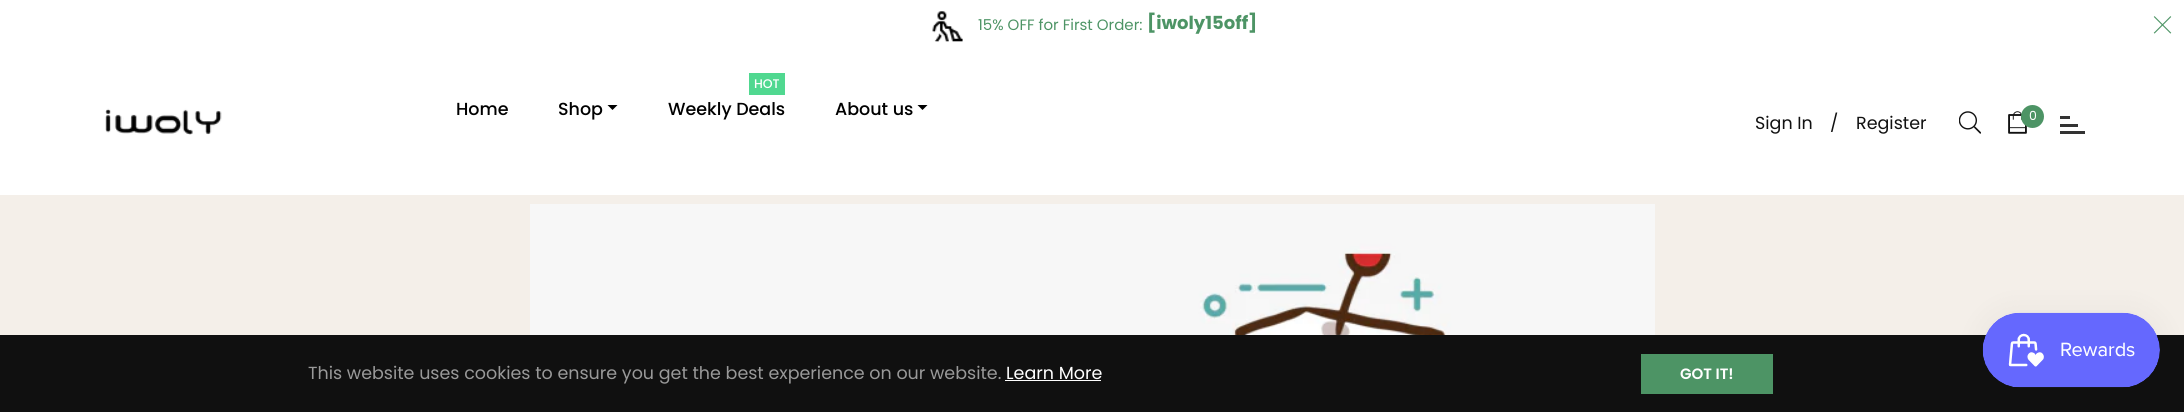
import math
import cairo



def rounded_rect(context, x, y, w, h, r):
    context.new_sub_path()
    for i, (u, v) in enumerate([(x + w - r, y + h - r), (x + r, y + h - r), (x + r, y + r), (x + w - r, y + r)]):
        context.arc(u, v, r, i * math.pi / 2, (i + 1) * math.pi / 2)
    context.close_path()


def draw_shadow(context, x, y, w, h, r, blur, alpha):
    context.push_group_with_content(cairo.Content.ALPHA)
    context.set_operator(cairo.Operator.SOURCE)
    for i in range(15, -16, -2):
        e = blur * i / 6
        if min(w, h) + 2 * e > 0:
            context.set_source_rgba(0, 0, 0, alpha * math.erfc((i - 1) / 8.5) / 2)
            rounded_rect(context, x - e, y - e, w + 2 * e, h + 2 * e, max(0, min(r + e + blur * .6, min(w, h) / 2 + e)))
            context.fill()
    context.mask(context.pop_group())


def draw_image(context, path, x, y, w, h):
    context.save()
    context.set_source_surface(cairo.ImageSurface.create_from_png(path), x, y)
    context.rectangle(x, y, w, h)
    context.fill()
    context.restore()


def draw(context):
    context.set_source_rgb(1, 1, 1)
    context.paint()
    draw_image(context, "images/1.png", 932, 11, 31, 31)
    draw_image(context, "images/2.png", 2153, 16, 19, 18)
    draw_image(context, "images/3.png", 105, 108, 117, 27)
    context.set_source_rgb(0, 0, 0)
    context.new_path()
    context.move_to(607.5, 105)
    context.line_to(617.5, 105)
    context.line_to(612.5, 110)
    context.close_path()
    context.fill()
    context.set_source_rgb(80 / 255, 216 / 255, 144 / 255)
    context.rectangle(749, 73, 36, 22)
    context.fill()
    context.set_source_rgb(0, 0, 0)
    context.new_path()
    context.move_to(917.5, 105)
    context.line_to(927.5, 105)
    context.line_to(922.5, 110)
    context.close_path()
    context.fill()
    draw_image(context, "images/4.png", 1959, 111, 22, 23)
    draw_image(context, "images/5.png", 2008, 111, 19, 23)
    context.set_source_rgb(77 / 255, 148 / 255, 101 / 255)
    context.arc(2032.5, 116.5, 11.5, 0, 2 * math.pi)
    context.fill()
    context.set_source_rgb(51 / 255, 51 / 255, 51 / 255)
    context.rectangle(2060, 116, 10, 3)
    context.fill()
    context.rectangle(2060, 124, 18, 3)
    context.fill()
    context.rectangle(2060, 131, 25, 3)
    context.fill()
    context.set_source_rgb(244 / 255, 239 / 255, 233 / 255)
    context.rectangle(0, 195, 2184, 140)
    context.fill()
    draw_image(context, "images/6.png", 530, 204, 1125, 131)
    context.set_source_rgb(16 / 255, 16 / 255, 16 / 255)
    context.rectangle(0, 335, 2184, 77)
    context.fill()
    context.set_source_rgb(1, 1, 1)
    context.rectangle(1005, 380, 96, 1)
    context.fill()
    context.set_source_rgb(77 / 255, 148 / 255, 101 / 255)
    context.rectangle(1641, 354, 132, 40)
    context.fill()
    context.set_source_rgb(0, 0, 0)
    draw_shadow(context, 1983, 313, 177, 75, 37.5, 15.5, 0.05)
    draw_image(context, "images/7.png", 1982, 312, 178, 76)
    context.select_font_face("Poppins")
    context.set_font_size(15)
    context.set_source_rgb(77 / 255, 148 / 255, 101 / 255)
    context.move_to(978, 30)
    context.show_text("15% OFF for First Order:")
    context.select_font_face("Poppins", cairo.FontSlant.NORMAL, cairo.FontWeight.BOLD)
    context.set_font_size(18)
    context.move_to(1147, 29)
    context.show_text("[iwoly15off]")
    context.select_font_face("Poppins Medium")
    context.set_font_size(17.5)
    context.set_source_rgb(0, 0, 0)
    context.move_to(456, 115)
    context.show_text("Home")
    context.move_to(558, 115)
    context.show_text("Shop")
    context.set_font_size(12.5)
    context.set_source_rgb(1, 1, 1)
    context.move_to(754, 88)
    context.show_text("HOT")
    context.set_font_size(17.5)
    context.set_source_rgb(0, 0, 0)
    context.move_to(668, 115)
    context.show_text("Weekly Deals")
    context.move_to(835, 115)
    context.show_text("About us")
    context.select_font_face("Poppins")
    context.set_source_rgb(17 / 255, 17 / 255, 17 / 255)
    context.move_to(1755, 129)
    context.show_text("Sign In")
    context.move_to(1830, 129)
    context.show_text("/")
    context.move_to(1856, 129)
    context.show_text("Register")
    context.set_font_size(12.5)
    context.set_source_rgb(1, 1, 1)
    context.move_to(2029, 120)
    context.show_text("0")
    context.set_font_size(17.5)
    context.set_source_rgb(153 / 255, 153 / 255, 153 / 255)
    context.move_to(308, 379)
    context.show_text("This website uses cookies to ensure you get the best experience on our website.")
    context.set_source_rgb(1, 1, 1)
    context.move_to(1006, 379)
    context.show_text("Learn More")
    context.select_font_face("Poppins SemiBold")
    context.set_font_size(15)
    context.move_to(1680, 379)
    context.show_text("GOT IT!")


surface = cairo.ImageSurface(cairo.Format.RGB24, 2184, 412)
context = cairo.Context(surface)
options = cairo.FontOptions()
options.set_hint_metrics(cairo.HintMetrics.OFF)
options.set_hint_style(cairo.HintStyle.NONE)
context.set_font_options(options)
context.set_miter_limit(4)
draw(context)
surface.write_to_png("out.png")
